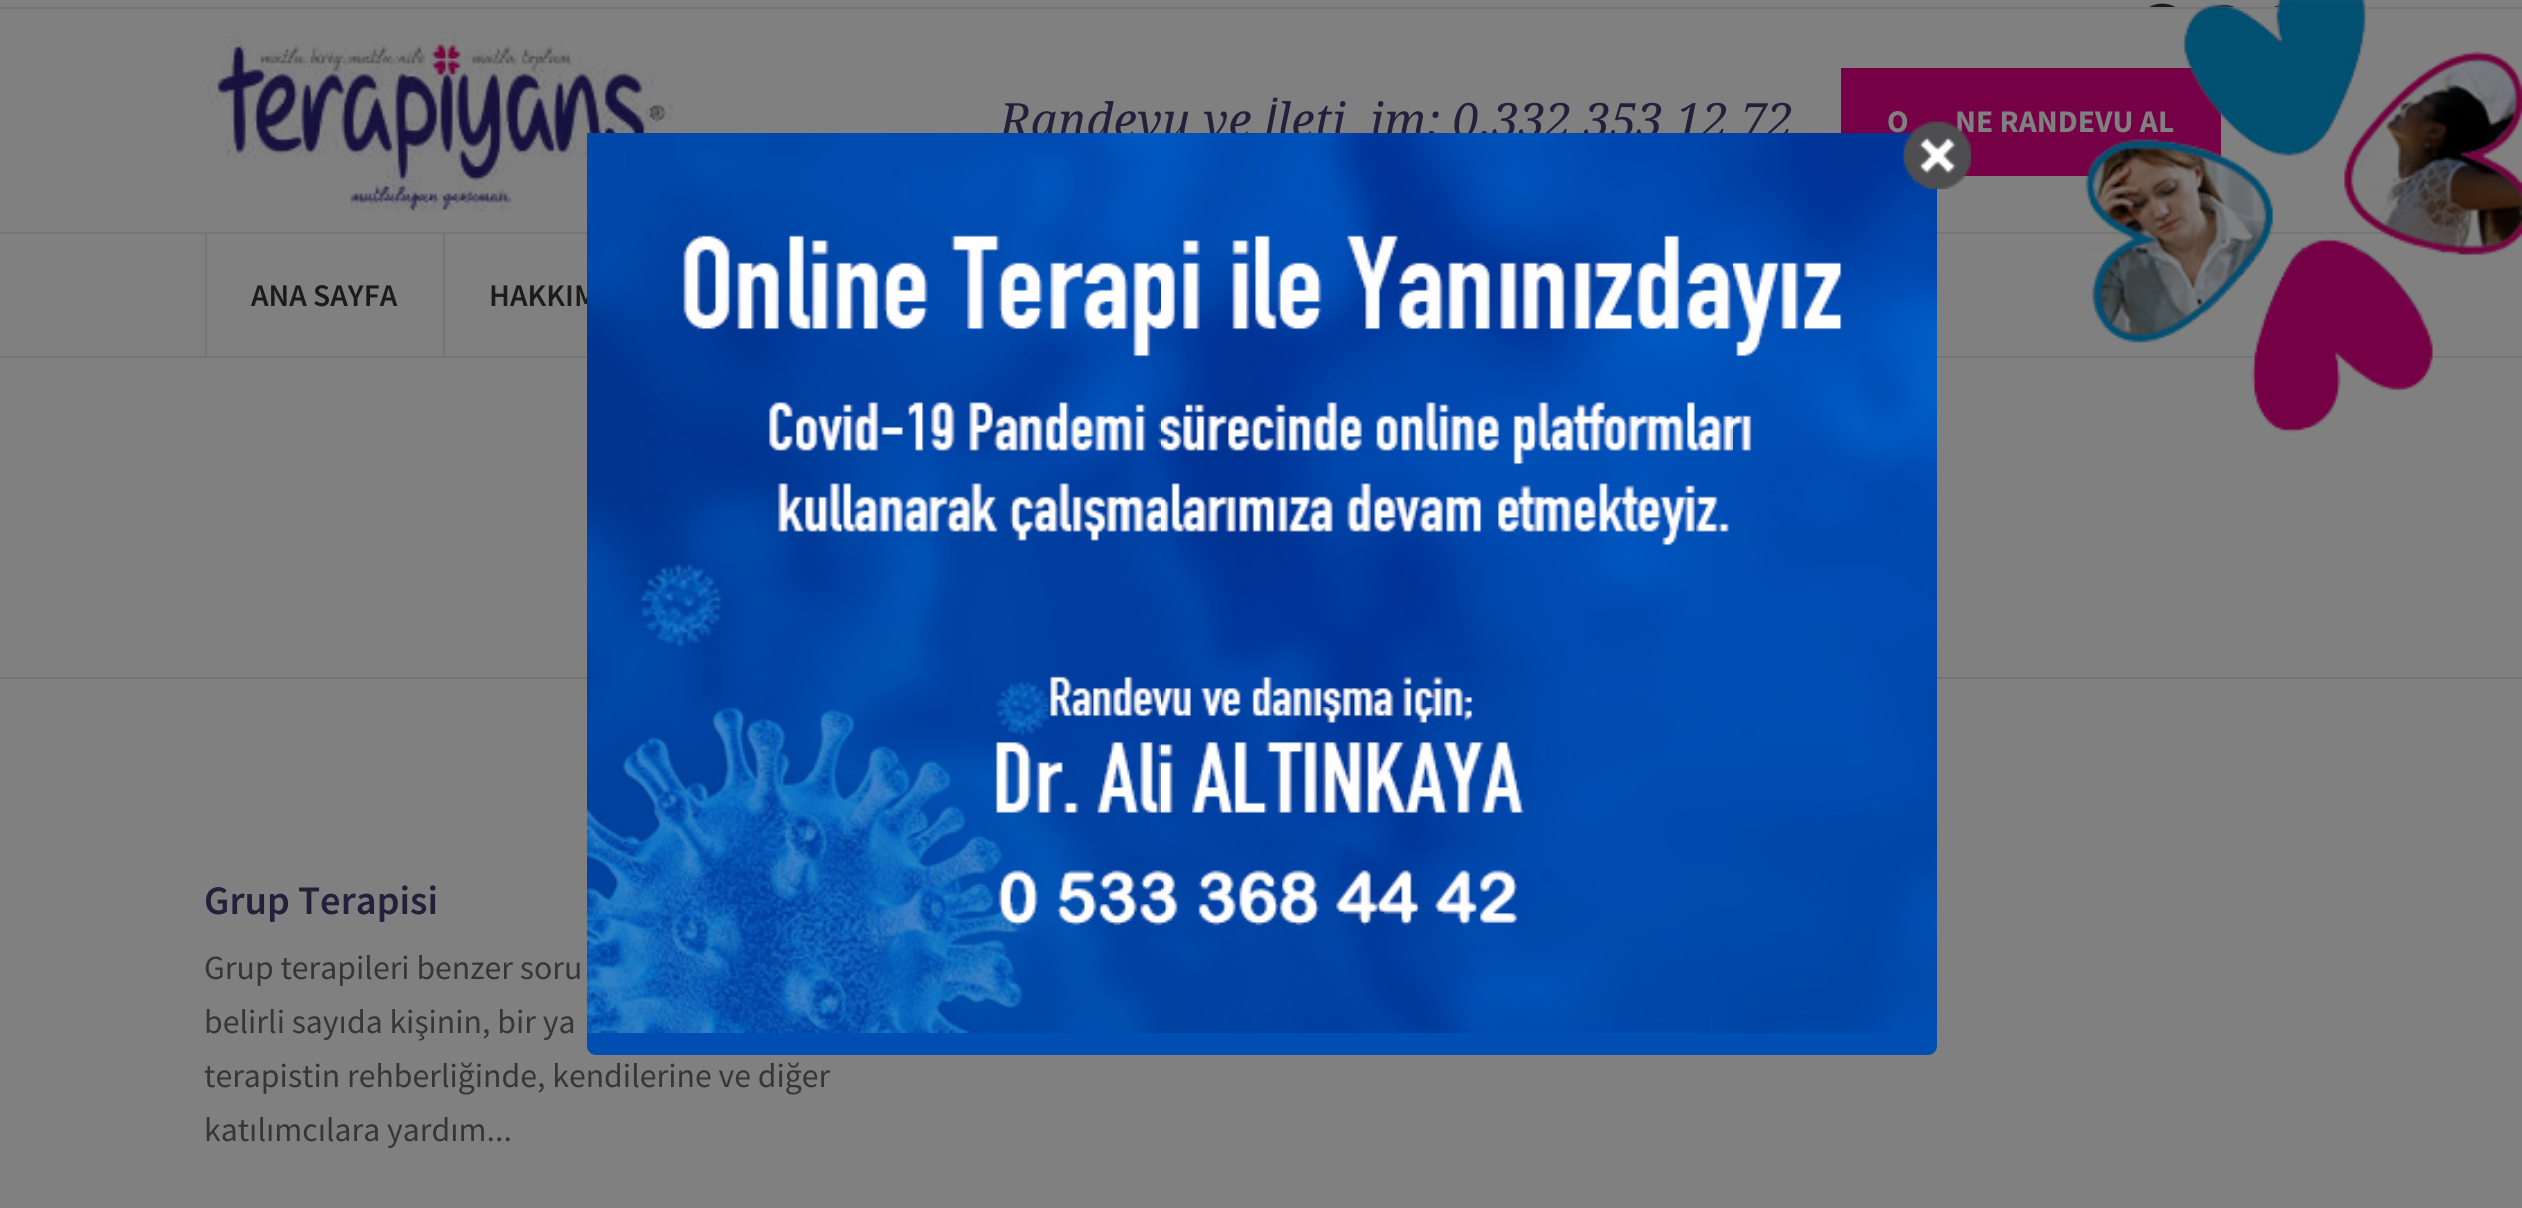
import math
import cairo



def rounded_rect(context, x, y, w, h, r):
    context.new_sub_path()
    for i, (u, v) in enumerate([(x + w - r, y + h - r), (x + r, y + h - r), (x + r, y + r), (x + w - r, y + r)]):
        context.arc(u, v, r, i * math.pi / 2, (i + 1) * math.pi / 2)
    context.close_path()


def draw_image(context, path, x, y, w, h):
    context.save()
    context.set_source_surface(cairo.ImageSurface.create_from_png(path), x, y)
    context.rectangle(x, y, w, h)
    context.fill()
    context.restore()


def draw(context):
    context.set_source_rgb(128 / 255, 128 / 255, 128 / 255)
    context.paint()
    context.set_source_rgb(117 / 255, 117 / 255, 117 / 255)
    context.rectangle(0, 7, 2522, 2)
    context.fill()
    draw_image(context, "images/2.png", 2149, 3, 27, 4)
    context.save()
    context.rectangle(2135, 0, 185, 7)
    context.clip()
    context.set_source_rgb(27 / 255, 27 / 255, 27 / 255)
    context.new_path()
    context.move_to(2224, 5)
    context.curve_to(2258, 5, 2258, 57, 2224, 57)
    context.curve_to(2190, 57, 2190, 5, 2224, 5)
    context.close_path()
    context.move_to(2230, 22)
    context.line_to(2230, 18)
    context.curve_to(2223, 18, 2221, 19, 2221, 27)
    context.line_to(2217, 27)
    context.line_to(2217, 31)
    context.line_to(2221, 31)
    context.line_to(2221, 43)
    context.line_to(2225, 43)
    context.line_to(2225, 31)
    context.line_to(2230, 31)
    context.line_to(2230, 27)
    context.line_to(2225, 27)
    context.curve_to(2225, 22, 2225, 22, 2230, 22)
    context.close_path()
    context.fill()
    context.restore()
    draw_image(context, "images/3.png", 2274, 5, 6, 2)
    context.rectangle(0, 232, 2522, 2)
    context.fill()
    draw_image(context, "images/4.png", 207, 31, 466, 181)
    context.set_source_rgb(118 / 255, 0, 70 / 255)
    context.rectangle(1841, 68, 380, 108)
    context.fill()
    context.set_source_rgb(117 / 255, 117 / 255, 117 / 255)
    context.rectangle(0, 356, 2522, 2)
    context.fill()
    context.rectangle(205, 234, 2, 122)
    context.fill()
    context.rectangle(443, 234, 2, 122)
    context.fill()
    context.set_source_rgb(116 / 255, 116 / 255, 116 / 255)
    context.rectangle(0, 677, 2522, 2)
    context.fill()
    context.select_font_face("Droid Serif", cairo.FontSlant.ITALIC)
    context.set_font_size(47.25)
    context.set_source_rgb(36 / 255, 31 / 255, 59 / 255)
    context.move_to(1000, 137)
    context.show_text("Randevu ve")
    context.select_font_face("Liberation Sans", cairo.FontSlant.ITALIC)
    context.move_to(1264, 137)
    context.show_text("İ")
    context.select_font_face("Droid Serif", cairo.FontSlant.ITALIC)
    context.move_to(1277, 137)
    context.show_text("leti")
    context.move_to(1370, 137)
    context.show_text("im: 0.332 353 12 72")
    context.select_font_face("Source Sans Pro", cairo.FontSlant.NORMAL, cairo.FontWeight.BOLD)
    context.set_font_size(31.5)
    context.set_source_rgb(128 / 255, 128 / 255, 128 / 255)
    context.move_to(1887, 132)
    context.show_text("O")
    context.move_to(1955, 132)
    context.show_text("NE RANDEVU AL")
    draw_image(context, "images/1.png", 2085, 0, 437, 433)
    context.select_font_face("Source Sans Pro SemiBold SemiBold")
    context.set_source_rgb(27 / 255, 27 / 255, 27 / 255)
    context.move_to(251, 306)
    context.show_text("ANA SAYFA")
    context.move_to(489, 306)
    context.show_text("HAKKIM")
    context.set_font_size(40.5)
    context.set_source_rgb(36 / 255, 31 / 255, 59 / 255)
    context.move_to(204, 914)
    context.show_text("Grup Terapisi")
    context.select_font_face("Source Sans Pro")
    context.set_font_size(33.75)
    context.set_source_rgb(54 / 255, 54 / 255, 54 / 255)
    context.move_to(204, 979)
    context.show_text("Grup terapileri benzer soru")
    context.move_to(204, 1033)
    context.show_text("belirli sayıda kişinin, bir ya")
    context.move_to(204, 1087)
    context.show_text("terapistin rehberliğinde, kendilerine ve diğer")
    context.move_to(204, 1141)
    context.show_text("katılımcılara yardım...")
    context.set_source_rgb(0, 78 / 255, 178 / 255)
    rounded_rect(context, 587, 155, 1350, 900, 9)
    context.fill()
    draw_image(context, "images/6.png", 587, 133, 1350, 900)
    draw_image(context, "images/5.png", 1903, 121, 68, 68)


surface = cairo.ImageSurface(cairo.Format.RGB24, 2522, 1208)
context = cairo.Context(surface)
options = cairo.FontOptions()
options.set_hint_metrics(cairo.HintMetrics.OFF)
options.set_hint_style(cairo.HintStyle.NONE)
context.set_font_options(options)
context.set_miter_limit(4)
draw(context)
surface.write_to_png("out.png")
